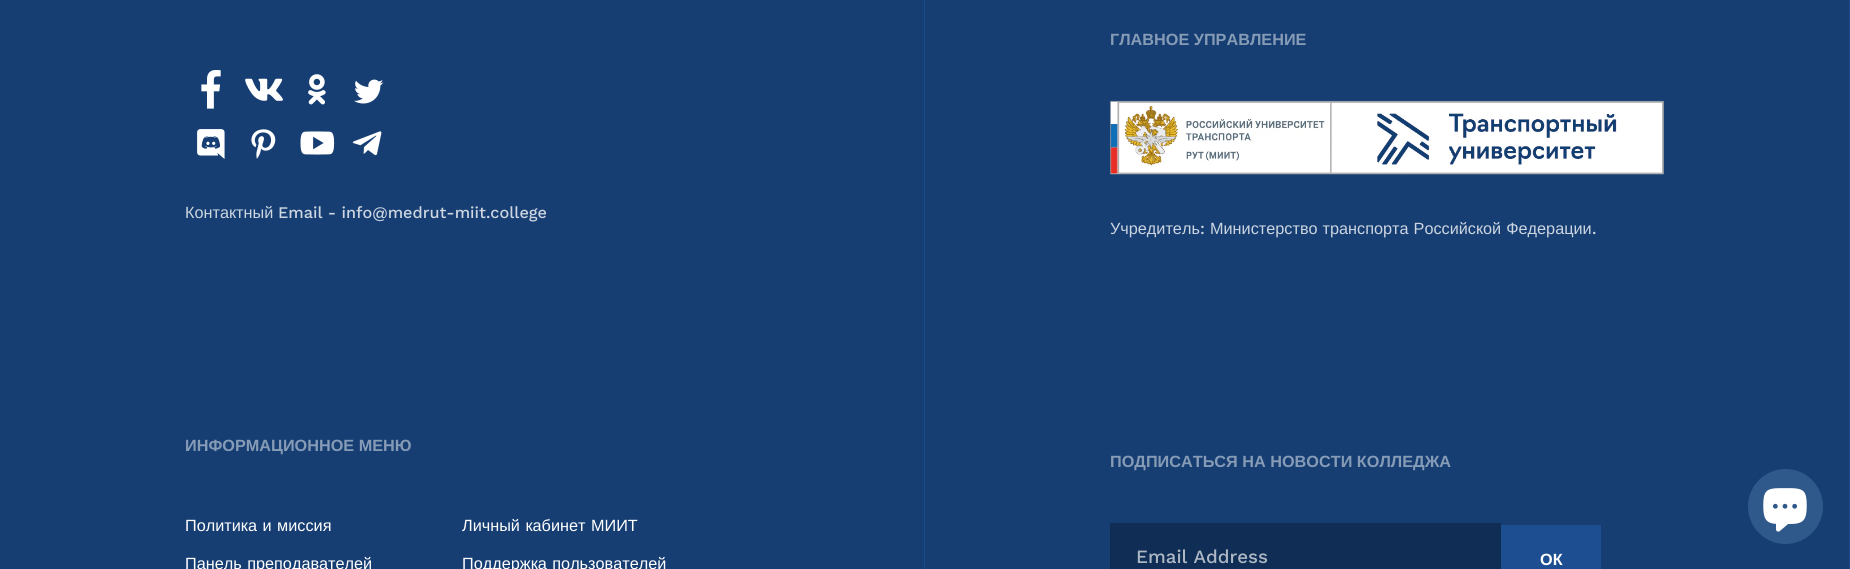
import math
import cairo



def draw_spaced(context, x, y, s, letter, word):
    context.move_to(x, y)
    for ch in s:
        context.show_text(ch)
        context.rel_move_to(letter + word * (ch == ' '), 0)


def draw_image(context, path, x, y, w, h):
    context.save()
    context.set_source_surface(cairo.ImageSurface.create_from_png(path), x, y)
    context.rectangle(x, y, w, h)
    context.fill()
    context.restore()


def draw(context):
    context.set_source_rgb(22 / 255, 62 / 255, 115 / 255)
    context.paint()
    context.set_source_rgb(26 / 255, 74 / 255, 136 / 255)
    context.rectangle(924, 0, 1, 569)
    context.fill()
    draw_image(context, "images/1.png", 201, 70, 20, 39)
    draw_image(context, "images/2.png", 245, 78, 38, 23)
    draw_image(context, "images/3.png", 308, 74, 18, 31)
    draw_image(context, "images/4.png", 354, 79, 30, 25)
    draw_image(context, "images/5.png", 197, 129, 28, 30)
    draw_image(context, "images/6.png", 251, 129, 25, 30)
    draw_image(context, "images/7.png", 300, 131, 35, 24)
    draw_image(context, "images/8.png", 352, 131, 30, 25)
    context.rectangle(1849, 0, 1, 569)
    context.fill()
    draw_image(context, "images/9.png", 1110, 100, 554, 75)
    context.set_source_rgb(16 / 255, 46 / 255, 85 / 255)
    context.rectangle(1110, 523, 391, 46)
    context.fill()
    context.set_source_rgb(28 / 255, 78 / 255, 145 / 255)
    context.rectangle(1501, 525, 100, 44)
    context.fill()
    context.set_source_rgb(47 / 255, 89 / 255, 139 / 255)
    context.arc(1785.5, 506.5, 37.5, 0, 2 * math.pi)
    context.fill()
    draw_image(context, "images/10.png", 1763, 488, 44, 44)
    context.select_font_face("Liberation Sans")
    context.set_font_size(16.25)
    context.set_source_rgb(204 / 255, 213 / 255, 224 / 255)
    context.move_to(185, 218)
    context.show_text("Контактный")
    context.select_font_face("Work Sans Medium")
    context.move_to(278, 218)
    context.show_text("Email - info@medrut-miit.college")
    context.select_font_face("Liberation Sans", cairo.FontSlant.NORMAL, cairo.FontWeight.BOLD)
    context.set_source_rgb(134 / 255, 155 / 255, 182 / 255)
    context.move_to(185, 451)
    context.show_text("ИНФОРМАЦИОННОЕ МЕНЮ")
    context.select_font_face("Liberation Sans")
    context.set_source_rgb(1, 1, 1)
    draw_spaced(context, 185, 531, "Политика и миссия", 0, 1)
    draw_spaced(context, 462, 531, "Личный кабинет МИИТ", 0, 1)
    draw_spaced(context, 185, 569, "Панель преподавателей", 0, 1)
    draw_spaced(context, 462, 569, "Поддержка пользователей", 0, 1)
    context.select_font_face("Liberation Sans", cairo.FontSlant.NORMAL, cairo.FontWeight.BOLD)
    context.set_source_rgb(134 / 255, 155 / 255, 182 / 255)
    context.move_to(1110, 45)
    context.show_text("ГЛАВНОЕ УПРАВЛЕНИЕ")
    context.select_font_face("Liberation Sans")
    context.set_source_rgb(204 / 255, 213 / 255, 224 / 255)
    context.move_to(1110, 234)
    context.show_text("Учредитель")
    context.select_font_face("Work Sans Medium")
    context.move_to(1200, 234)
    context.show_text(":")
    context.select_font_face("Liberation Sans")
    draw_spaced(context, 1210, 234, "Министерство транспорта Российской Федерации", 0, 0.5)
    context.select_font_face("Work Sans Medium")
    context.move_to(1592, 234)
    context.show_text(".")
    context.select_font_face("Liberation Sans", cairo.FontSlant.NORMAL, cairo.FontWeight.BOLD)
    context.set_source_rgb(134 / 255, 155 / 255, 182 / 255)
    context.move_to(1110, 467)
    context.show_text("ПОДПИСАТЬСЯ НА НОВОСТИ КОЛЛЕДЖА")
    context.select_font_face("Work Sans Medium")
    context.set_font_size(18.75)
    context.set_source_rgb(174 / 255, 184 / 255, 197 / 255)
    context.move_to(1136, 563)
    context.show_text("Email Address")
    context.select_font_face("Liberation Sans", cairo.FontSlant.NORMAL, cairo.FontWeight.BOLD)
    context.set_font_size(16.25)
    context.set_source_rgb(1, 1, 1)
    context.move_to(1540, 565)
    context.show_text("ОК")


surface = cairo.ImageSurface(cairo.Format.RGB24, 1850, 569)
context = cairo.Context(surface)
options = cairo.FontOptions()
options.set_hint_metrics(cairo.HintMetrics.OFF)
options.set_hint_style(cairo.HintStyle.NONE)
context.set_font_options(options)
context.set_miter_limit(4)
draw(context)
surface.write_to_png("out.png")
